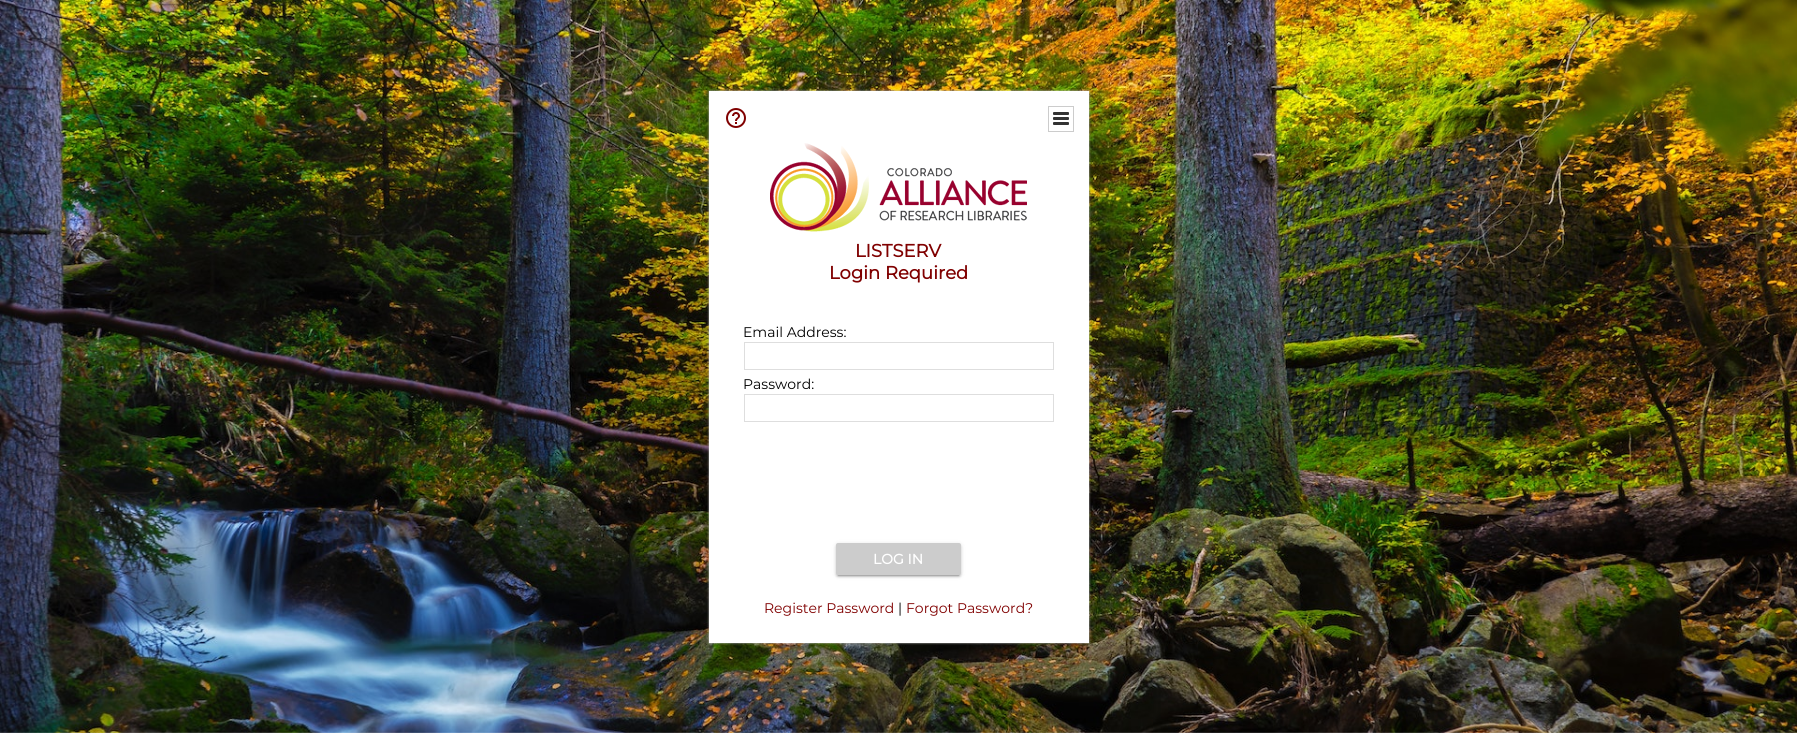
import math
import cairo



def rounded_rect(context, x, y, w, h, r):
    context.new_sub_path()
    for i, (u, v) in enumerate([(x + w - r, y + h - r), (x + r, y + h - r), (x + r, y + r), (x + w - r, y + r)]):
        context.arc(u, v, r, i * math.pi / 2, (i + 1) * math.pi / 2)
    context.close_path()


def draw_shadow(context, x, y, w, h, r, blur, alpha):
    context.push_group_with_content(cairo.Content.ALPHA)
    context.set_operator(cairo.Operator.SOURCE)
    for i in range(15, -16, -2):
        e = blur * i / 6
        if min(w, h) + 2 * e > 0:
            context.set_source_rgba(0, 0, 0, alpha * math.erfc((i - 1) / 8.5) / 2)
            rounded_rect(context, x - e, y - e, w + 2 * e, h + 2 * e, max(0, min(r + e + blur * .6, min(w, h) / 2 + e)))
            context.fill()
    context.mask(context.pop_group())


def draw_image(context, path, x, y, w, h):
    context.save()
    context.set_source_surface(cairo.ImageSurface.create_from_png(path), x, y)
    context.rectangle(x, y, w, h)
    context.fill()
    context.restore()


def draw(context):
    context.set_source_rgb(1, 1, 1)
    context.paint()
    draw_image(context, "images/1.png", 0, 0, 1797, 733)
    context.set_source_rgb(187 / 255, 187 / 255, 187 / 255)
    draw_shadow(context, 709, 91, 380, 552, 0, 1, 1)
    context.set_source_rgb(1, 1, 1)
    context.rectangle(709, 91, 380, 552)
    context.fill()
    draw_image(context, "images/2.png", 726, 108, 20, 20)
    context.rectangle(1048.5, 106.5, 25, 25)
    context.set_source_rgb(204 / 255, 204 / 255, 204 / 255)
    context.set_line_width(1)
    context.stroke()
    draw_image(context, "images/3.png", 1053, 112, 16, 13)
    draw_image(context, "images/4.png", 770, 143, 257, 89)
    context.rectangle(744.5, 342.5, 309, 27)
    context.set_source_rgb(222 / 255, 222 / 255, 222 / 255)
    context.stroke()
    context.rectangle(744.5, 394.5, 309, 27)
    context.stroke()
    context.set_source_rgb(0, 0, 0)
    draw_shadow(context, 838, 548, 121, 28, 0, 0.5, 0.2)
    draw_shadow(context, 836, 544, 125, 32, 2, 2.5, 0.12)
    draw_shadow(context, 836, 545, 125, 32, 2, 1, 0.14)
    context.set_source_rgb(204 / 255, 204 / 255, 204 / 255)
    rounded_rect(context, 836, 543, 125, 32, 2)
    context.fill()
    context.select_font_face("Montserrat", cairo.FontSlant.NORMAL, cairo.FontWeight.BOLD)
    context.set_font_size(18)
    context.set_source_rgb(128 / 255, 0, 0)
    context.move_to(855, 257)
    context.show_text("LISTSERV")
    context.move_to(829, 279)
    context.show_text("Login Required")
    context.select_font_face("Montserrat Thin")
    context.set_font_size(14)
    context.set_source_rgb(0, 0, 0)
    context.move_to(743, 337)
    context.show_text("Email Address:")
    context.move_to(743, 389)
    context.show_text("Password:")
    context.select_font_face("Montserrat", cairo.FontSlant.NORMAL, cairo.FontWeight.BOLD)
    context.set_source_rgb(1, 1, 1)
    context.move_to(873, 564)
    context.show_text("LOG IN")
    context.select_font_face("Montserrat Thin")
    context.set_source_rgb(128 / 255, 0, 0)
    context.move_to(764, 613)
    context.show_text("Register Password")
    context.set_source_rgb(0, 0, 0)
    context.move_to(898, 613)
    context.show_text("|")
    context.set_source_rgb(128 / 255, 0, 0)
    context.move_to(906, 613)
    context.show_text("Forgot Password?")


surface = cairo.ImageSurface(cairo.Format.RGB24, 1797, 733)
context = cairo.Context(surface)
options = cairo.FontOptions()
options.set_hint_metrics(cairo.HintMetrics.OFF)
options.set_hint_style(cairo.HintStyle.NONE)
context.set_font_options(options)
context.set_miter_limit(4)
draw(context)
surface.write_to_png("out.png")
